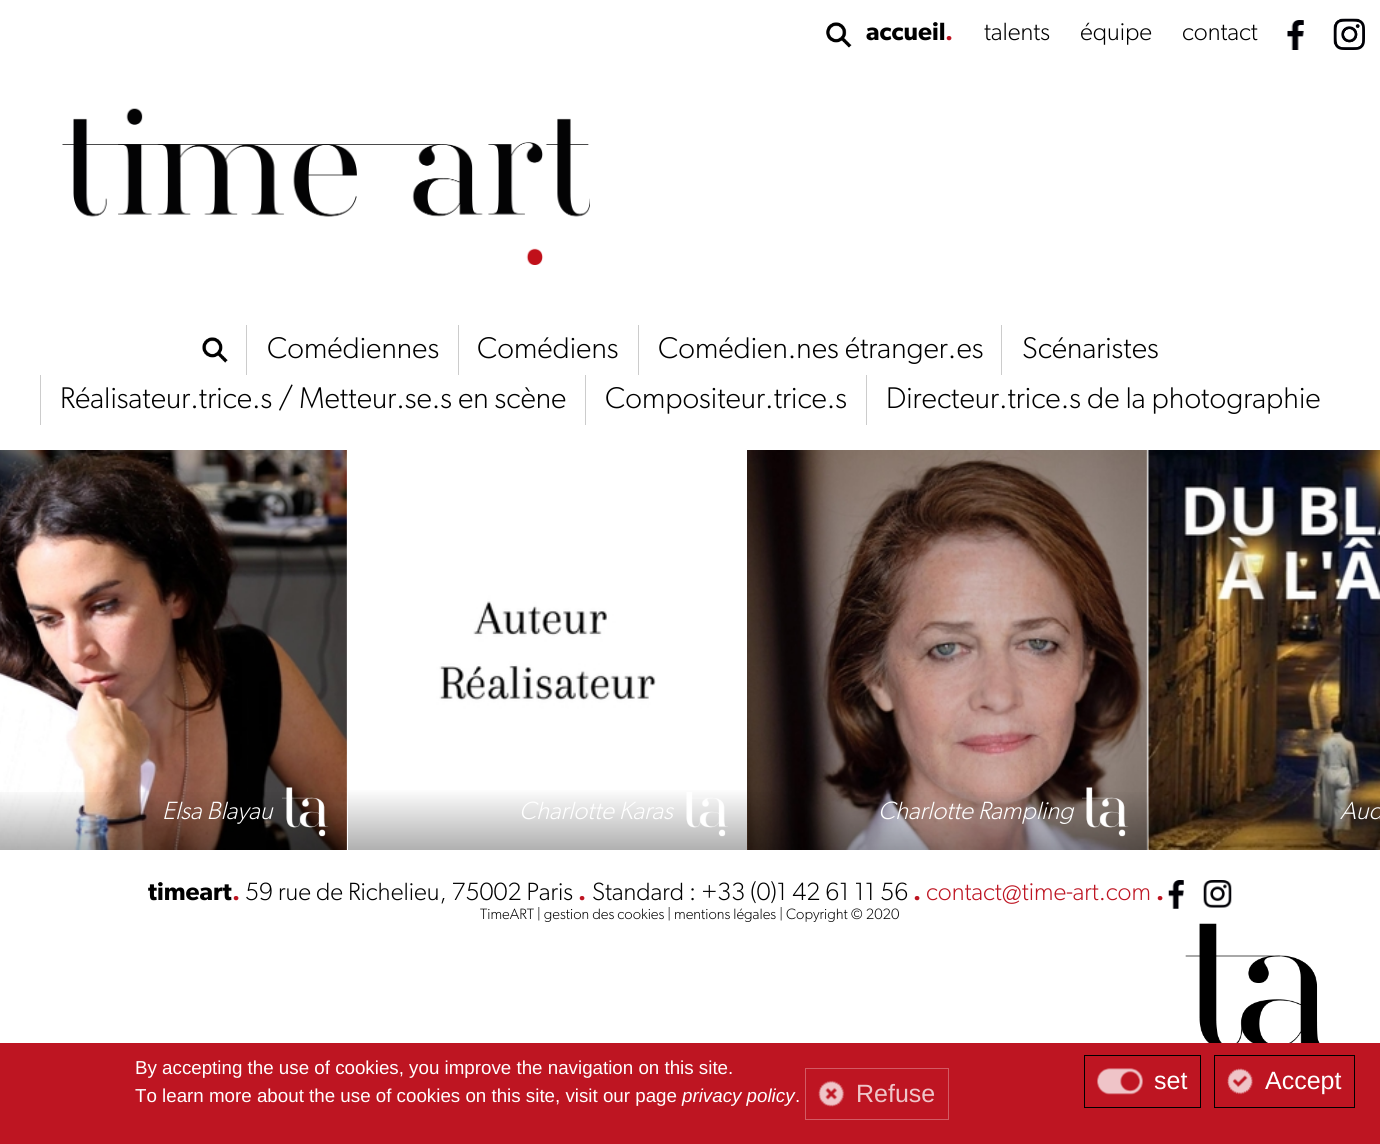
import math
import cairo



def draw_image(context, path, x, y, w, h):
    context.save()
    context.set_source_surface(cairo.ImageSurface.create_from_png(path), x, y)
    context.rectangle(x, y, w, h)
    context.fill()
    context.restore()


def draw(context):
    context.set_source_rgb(1, 1, 1)
    context.paint()
    draw_image(context, "images/1.png", 826, 22, 26, 26)
    draw_image(context, "images/2.png", 1287, 20, 17, 30)
    draw_image(context, "images/3.png", 1333, 18, 32, 32)
    draw_image(context, "images/4.png", 62, 108, 528, 157)
    draw_image(context, "images/5.png", 202, 337, 26, 26)
    context.set_source_rgb(204 / 255, 204 / 255, 204 / 255)
    context.rectangle(246, 325, 1, 50)
    context.fill()
    context.rectangle(458, 325, 1, 50)
    context.fill()
    context.rectangle(638, 325, 1, 50)
    context.fill()
    context.rectangle(1001, 325, 1, 50)
    context.fill()
    context.rectangle(40, 375, 1, 50)
    context.fill()
    context.rectangle(585, 375, 1, 50)
    context.fill()
    context.rectangle(866, 375, 1, 50)
    context.fill()
    draw_image(context, "images/6.png", 0, 450, 347, 400)
    gradient = cairo.LinearGradient(148, 850, 148, 788)
    gradient.add_color_stop_rgba(0, 0, 0, 0, 0.31)
    gradient.add_color_stop_rgba(1, 0, 0, 0, 0)
    context.set_source(gradient)
    context.rectangle(0, 792, 347, 58)
    context.fill()
    draw_image(context, "images/7.png", 282, 787, 47, 50)
    draw_image(context, "images/8.png", 347, 450, 309, 400)
    gradient = cairo.LinearGradient(548, 850, 548, 788)
    gradient.add_color_stop_rgba(0, 176 / 255, 176 / 255, 176 / 255, 1)
    gradient.add_color_stop_rgba(1, 1, 1, 1, 1)
    context.set_source(gradient)
    context.rectangle(348, 790, 399, 60)
    context.fill()
    draw_image(context, "images/9.png", 686, 792, 42, 45)
    draw_image(context, "images/10.png", 747, 450, 401, 400)
    gradient = cairo.LinearGradient(948, 850, 948, 788)
    gradient.add_color_stop_rgba(0, 0, 0, 0, 0.31)
    gradient.add_color_stop_rgba(1, 0, 0, 0, 0)
    context.set_source(gradient)
    context.rectangle(748, 792, 400, 58)
    context.fill()
    draw_image(context, "images/11.png", 1082, 787, 47, 50)
    draw_image(context, "images/12.png", 1147, 450, 233, 400)
    draw_image(context, "images/13.png", 1168, 880, 16, 29)
    draw_image(context, "images/14.png", 1203, 880, 29, 28)
    draw_image(context, "images/15.png", 1185, 923, 135, 120)
    context.set_source_rgb(190 / 255, 21 / 255, 34 / 255)
    context.rectangle(0, 1043, 1380, 101)
    context.fill()
    context.rectangle(1084.5, 1055.5, 116, 52)
    context.set_source_rgb(0, 0, 0)
    context.set_line_width(1)
    context.stroke()
    draw_image(context, "images/16.png", 1097, 1068, 46, 27)
    context.rectangle(1214.5, 1055.5, 140, 52)
    context.stroke()
    draw_image(context, "images/17.png", 1227, 1068, 26, 27)
    context.rectangle(805.5, 1068.5, 143, 51)
    context.set_source_rgb(210 / 255, 91 / 255, 100 / 255)
    context.stroke()
    draw_image(context, "images/18.png", 818, 1080, 27, 27)
    context.select_font_face("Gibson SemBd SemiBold")
    context.set_font_size(25)
    context.set_source_rgb(0, 0, 0)
    context.move_to(866, 40)
    context.show_text("accueil")
    context.set_source_rgb(190 / 255, 21 / 255, 34 / 255)
    context.move_to(945, 40)
    context.show_text(".")
    context.select_font_face("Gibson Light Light")
    context.set_source_rgb(0, 0, 0)
    context.move_to(984, 40)
    context.show_text("talents")
    context.move_to(1080, 40)
    context.show_text("équipe")
    context.move_to(1182, 40)
    context.show_text("contact")
    context.set_font_size(30)
    context.move_to(267, 358)
    context.show_text("Comédiennes")
    context.move_to(477, 358)
    context.show_text("Comédiens")
    context.move_to(658, 358)
    context.show_text("Comédien.nes étranger.es")
    context.move_to(1022, 358)
    context.show_text("Scénaristes")
    context.move_to(60, 408)
    context.show_text("Réalisateur.trice.s / Metteur.se.s en scène")
    context.move_to(605, 408)
    context.show_text("Compositeur.trice.s")
    context.move_to(886, 408)
    context.show_text("Directeur.trice.s de la photographie")
    context.select_font_face("Gibson Light Light", cairo.FontSlant.ITALIC)
    context.set_font_size(25)
    context.set_source_rgb(1, 1, 1)
    context.move_to(162, 819)
    context.show_text("Elsa Blayau")
    context.move_to(519, 819)
    context.show_text("Charlotte Karas")
    context.move_to(878, 819)
    context.show_text("Charlotte Rampling")
    context.move_to(1340, 819)
    context.show_text("Aud")
    context.select_font_face("Gibson SemBd SemiBold")
    context.set_source_rgb(0, 0, 0)
    context.move_to(148, 900)
    context.show_text("timeart")
    context.set_source_rgb(190 / 255, 21 / 255, 34 / 255)
    context.move_to(232, 900)
    context.show_text(".")
    context.select_font_face("Gibson Light Light")
    context.set_source_rgb(0, 0, 0)
    context.move_to(245, 900)
    context.show_text("59 rue de Richelieu, 75002 Paris")
    context.select_font_face("Gibson SemBd SemiBold")
    context.set_source_rgb(190 / 255, 21 / 255, 34 / 255)
    context.move_to(578, 900)
    context.show_text(".")
    context.select_font_face("Gibson Light Light")
    context.set_source_rgb(0, 0, 0)
    context.move_to(592, 900)
    context.show_text("Standard : +33 (0)1 42 61 11 56")
    context.select_font_face("Gibson SemBd SemiBold")
    context.set_source_rgb(190 / 255, 21 / 255, 34 / 255)
    context.move_to(913, 900)
    context.show_text(".")
    context.select_font_face("Gibson Light Light")
    context.move_to(926, 900)
    context.show_text("contact@time-art.com")
    context.select_font_face("Gibson SemBd SemiBold")
    context.move_to(1156, 900)
    context.show_text(".")
    context.select_font_face("Gibson Light Light")
    context.set_font_size(15)
    context.set_source_rgb(0, 0, 0)
    context.move_to(480, 919)
    context.show_text("TimeART | gestion des cookies | mentions légales | Copyright © 2020")
    context.select_font_face("Liberation Sans")
    context.set_font_size(18.75)
    context.set_source_rgb(1, 1, 1)
    context.move_to(135, 1074)
    context.show_text("By accepting the use of cookies, you improve the navigation on this site.")
    context.move_to(135, 1102)
    context.show_text("To learn more about the use of cookies on this site, visit our page")
    context.select_font_face("Liberation Sans", cairo.FontSlant.ITALIC)
    context.move_to(682, 1102)
    context.show_text("privacy policy")
    context.select_font_face("Liberation Sans")
    context.move_to(795, 1102)
    context.show_text(".")
    context.set_font_size(25)
    context.move_to(1154, 1089)
    context.show_text("set")
    context.move_to(1265, 1089)
    context.show_text("Accept")
    context.set_source_rgb(239 / 255, 197 / 255, 200 / 255)
    context.move_to(856, 1102)
    context.show_text("Refuse")


surface = cairo.ImageSurface(cairo.Format.RGB24, 1380, 1144)
context = cairo.Context(surface)
options = cairo.FontOptions()
options.set_hint_metrics(cairo.HintMetrics.OFF)
options.set_hint_style(cairo.HintStyle.NONE)
context.set_font_options(options)
context.set_miter_limit(4)
draw(context)
surface.write_to_png("out.png")
